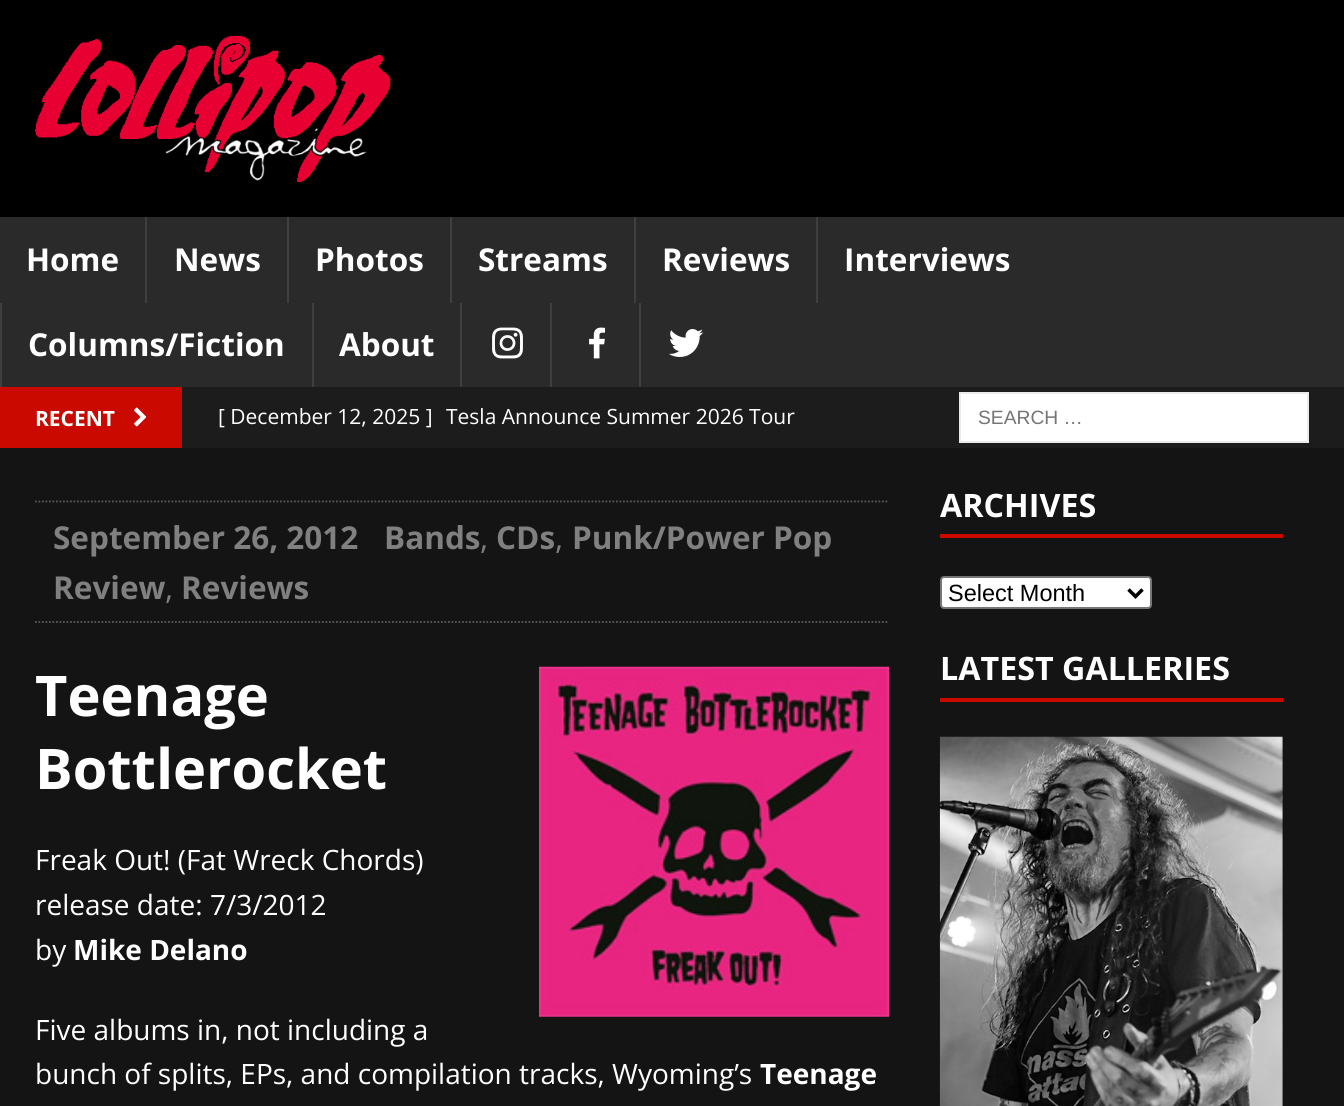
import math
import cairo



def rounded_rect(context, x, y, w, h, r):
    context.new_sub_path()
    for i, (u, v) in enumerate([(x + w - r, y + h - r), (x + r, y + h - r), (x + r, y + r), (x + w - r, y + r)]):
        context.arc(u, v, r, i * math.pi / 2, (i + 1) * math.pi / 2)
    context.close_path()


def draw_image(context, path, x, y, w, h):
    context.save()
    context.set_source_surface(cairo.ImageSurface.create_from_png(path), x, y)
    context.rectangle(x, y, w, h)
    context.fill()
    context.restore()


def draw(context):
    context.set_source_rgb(0, 0, 0)
    context.paint()
    draw_image(context, "images/1.png", 35, 35, 356, 147)
    context.set_source_rgb(42 / 255, 42 / 255, 42 / 255)
    context.rectangle(0, 217, 1344, 170)
    context.fill()
    context.set_source_rgb(63 / 255, 63 / 255, 63 / 255)
    context.rectangle(145, 217, 2, 86)
    context.fill()
    context.rectangle(287, 217, 2, 86)
    context.fill()
    context.rectangle(450, 217, 2, 86)
    context.fill()
    context.rectangle(634, 217, 2, 86)
    context.fill()
    context.rectangle(816, 217, 2, 86)
    context.fill()
    context.rectangle(0, 303, 2, 84)
    context.fill()
    context.rectangle(312, 303, 2, 84)
    context.fill()
    context.rectangle(460, 303, 2, 84)
    context.fill()
    draw_image(context, "images/2.png", 492, 327, 31, 32)
    context.rectangle(550, 303, 2, 84)
    context.fill()
    draw_image(context, "images/3.png", 589, 327, 17, 32)
    context.rectangle(639, 303, 2, 84)
    context.fill()
    draw_image(context, "images/4.png", 669, 329, 34, 28)
    context.set_source_rgb(28 / 255, 28 / 255, 28 / 255)
    context.rectangle(182, 387, 1162, 61)
    context.fill()
    context.set_source_rgb(202 / 255, 9 / 255, 0)
    context.rectangle(0, 387, 182, 61)
    context.fill()
    draw_image(context, "images/5.png", 134, 407, 13, 20)
    context.set_source_rgb(1, 1, 1)
    context.rectangle(960, 393, 348, 49)
    context.fill_preserve()
    context.set_source_rgb(235 / 255, 235 / 255, 235 / 255)
    context.stroke()
    context.set_source_rgb(20 / 255, 20 / 255, 20 / 255)
    context.rectangle(0, 448, 1344, 658)
    context.fill()
    context.new_path()
    context.move_to(35, 501.5)
    context.line_to(889, 501.5)
    context.set_source_rgb(91 / 255, 91 / 255, 91 / 255)
    context.set_line_width(1.8)
    context.set_dash([1.75, 1.75])
    context.stroke()
    context.new_path()
    context.move_to(35, 622)
    context.line_to(889, 622)
    context.stroke()
    draw_image(context, "images/6.png", 539, 666, 350, 351)
    context.set_source_rgb(202 / 255, 9 / 255, 0)
    context.rectangle(940, 534, 343, 4)
    context.fill()
    context.set_source_rgb(1, 1, 1)
    rounded_rect(context, 941, 577, 210, 31, 3)
    context.fill_preserve()
    context.set_source_rgb(118 / 255, 118 / 255, 118 / 255)
    context.set_line_width(2)
    context.set_dash([])
    context.stroke()
    context.new_path()
    context.move_to(1128.5, 589.5)
    context.line_to(1135.5, 596.5)
    context.line_to(1142.5, 589.5)
    context.set_source_rgb(0, 0, 0)
    context.set_line_width(3.5)
    context.stroke()
    context.set_source_rgb(202 / 255, 9 / 255, 0)
    context.rectangle(940, 698, 343, 4)
    context.fill()
    draw_image(context, "images/7.png", 939, 736, 344, 370)
    context.select_font_face("Open Sans", cairo.FontSlant.NORMAL, cairo.FontWeight.BOLD)
    context.set_font_size(31.5)
    context.set_source_rgb(1, 1, 1)
    context.move_to(26, 271)
    context.show_text("Home")
    context.move_to(174, 271)
    context.show_text("News")
    context.move_to(315, 271)
    context.show_text("Photos")
    context.move_to(478, 271)
    context.show_text("Streams")
    context.move_to(662, 271)
    context.show_text("Reviews")
    context.move_to(844, 271)
    context.show_text("Interviews")
    context.move_to(28, 356)
    context.show_text("Columns/Fiction")
    context.move_to(339, 356)
    context.show_text("About")
    context.set_font_size(21)
    context.move_to(35, 426)
    context.show_text("RECENT")
    context.select_font_face("Open Sans")
    context.move_to(218, 424)
    context.show_text("[ December 12, 2025 ]")
    context.move_to(446, 424)
    context.show_text("Tesla Announce Summer 2026 Tour")
    context.select_font_face("Liberation Sans")
    context.set_font_size(19.25)
    context.set_source_rgb(117 / 255, 117 / 255, 117 / 255)
    context.move_to(978, 424)
    context.show_text("SEARCH …")
    context.select_font_face("Open Sans", cairo.FontSlant.NORMAL, cairo.FontWeight.BOLD)
    context.set_font_size(31.5)
    context.set_source_rgb(128 / 255, 128 / 255, 128 / 255)
    context.move_to(53, 549)
    context.show_text("September 26, 2012")
    context.move_to(384, 549)
    context.show_text("Bands")
    context.select_font_face("Open Sans")
    context.move_to(480, 549)
    context.show_text(",")
    context.select_font_face("Open Sans", cairo.FontSlant.NORMAL, cairo.FontWeight.BOLD)
    context.move_to(496, 549)
    context.show_text("CDs")
    context.select_font_face("Open Sans")
    context.move_to(555, 549)
    context.show_text(",")
    context.select_font_face("Open Sans", cairo.FontSlant.NORMAL, cairo.FontWeight.BOLD)
    context.move_to(572, 549)
    context.show_text("Punk/Power Pop")
    context.move_to(53, 599)
    context.show_text("Review")
    context.select_font_face("Open Sans")
    context.move_to(165, 599)
    context.show_text(",")
    context.select_font_face("Open Sans", cairo.FontSlant.NORMAL, cairo.FontWeight.BOLD)
    context.move_to(181, 599)
    context.show_text("Reviews")
    context.set_font_size(56)
    context.set_source_rgb(1, 1, 1)
    context.move_to(35, 716)
    context.show_text("Teenage")
    context.move_to(35, 789)
    context.show_text("Bottlerocket")
    context.select_font_face("Open Sans")
    context.set_font_size(28)
    context.move_to(35, 870)
    context.show_text("Freak Out! (Fat Wreck Chords)")
    context.move_to(35, 915)
    context.show_text("release date: 7/3/2012")
    context.move_to(35, 960)
    context.show_text("by")
    context.select_font_face("Open Sans", cairo.FontSlant.NORMAL, cairo.FontWeight.BOLD)
    context.move_to(73, 960)
    context.show_text("Mike Delano")
    context.select_font_face("Open Sans")
    context.move_to(35, 1040)
    context.show_text("Five albums in, not including a")
    context.move_to(35, 1084)
    context.show_text("bunch of splits, EPs, and compilation tracks, Wyoming’s")
    context.select_font_face("Open Sans", cairo.FontSlant.NORMAL, cairo.FontWeight.BOLD)
    context.move_to(760, 1084)
    context.show_text("Teenage")
    context.set_font_size(32.25)
    context.move_to(940, 517)
    context.show_text("ARCHIVES")
    context.select_font_face("Liberation Sans")
    context.set_font_size(23.5)
    context.set_source_rgb(0, 0, 0)
    context.move_to(948, 601)
    context.show_text("Select Month")
    context.select_font_face("Open Sans", cairo.FontSlant.NORMAL, cairo.FontWeight.BOLD)
    context.set_font_size(32.25)
    context.set_source_rgb(1, 1, 1)
    context.move_to(940, 680)
    context.show_text("LATEST GALLERIES")


surface = cairo.ImageSurface(cairo.Format.RGB24, 1344, 1106)
context = cairo.Context(surface)
options = cairo.FontOptions()
options.set_hint_metrics(cairo.HintMetrics.OFF)
options.set_hint_style(cairo.HintStyle.NONE)
context.set_font_options(options)
context.set_miter_limit(4)
draw(context)
surface.write_to_png("out.png")
